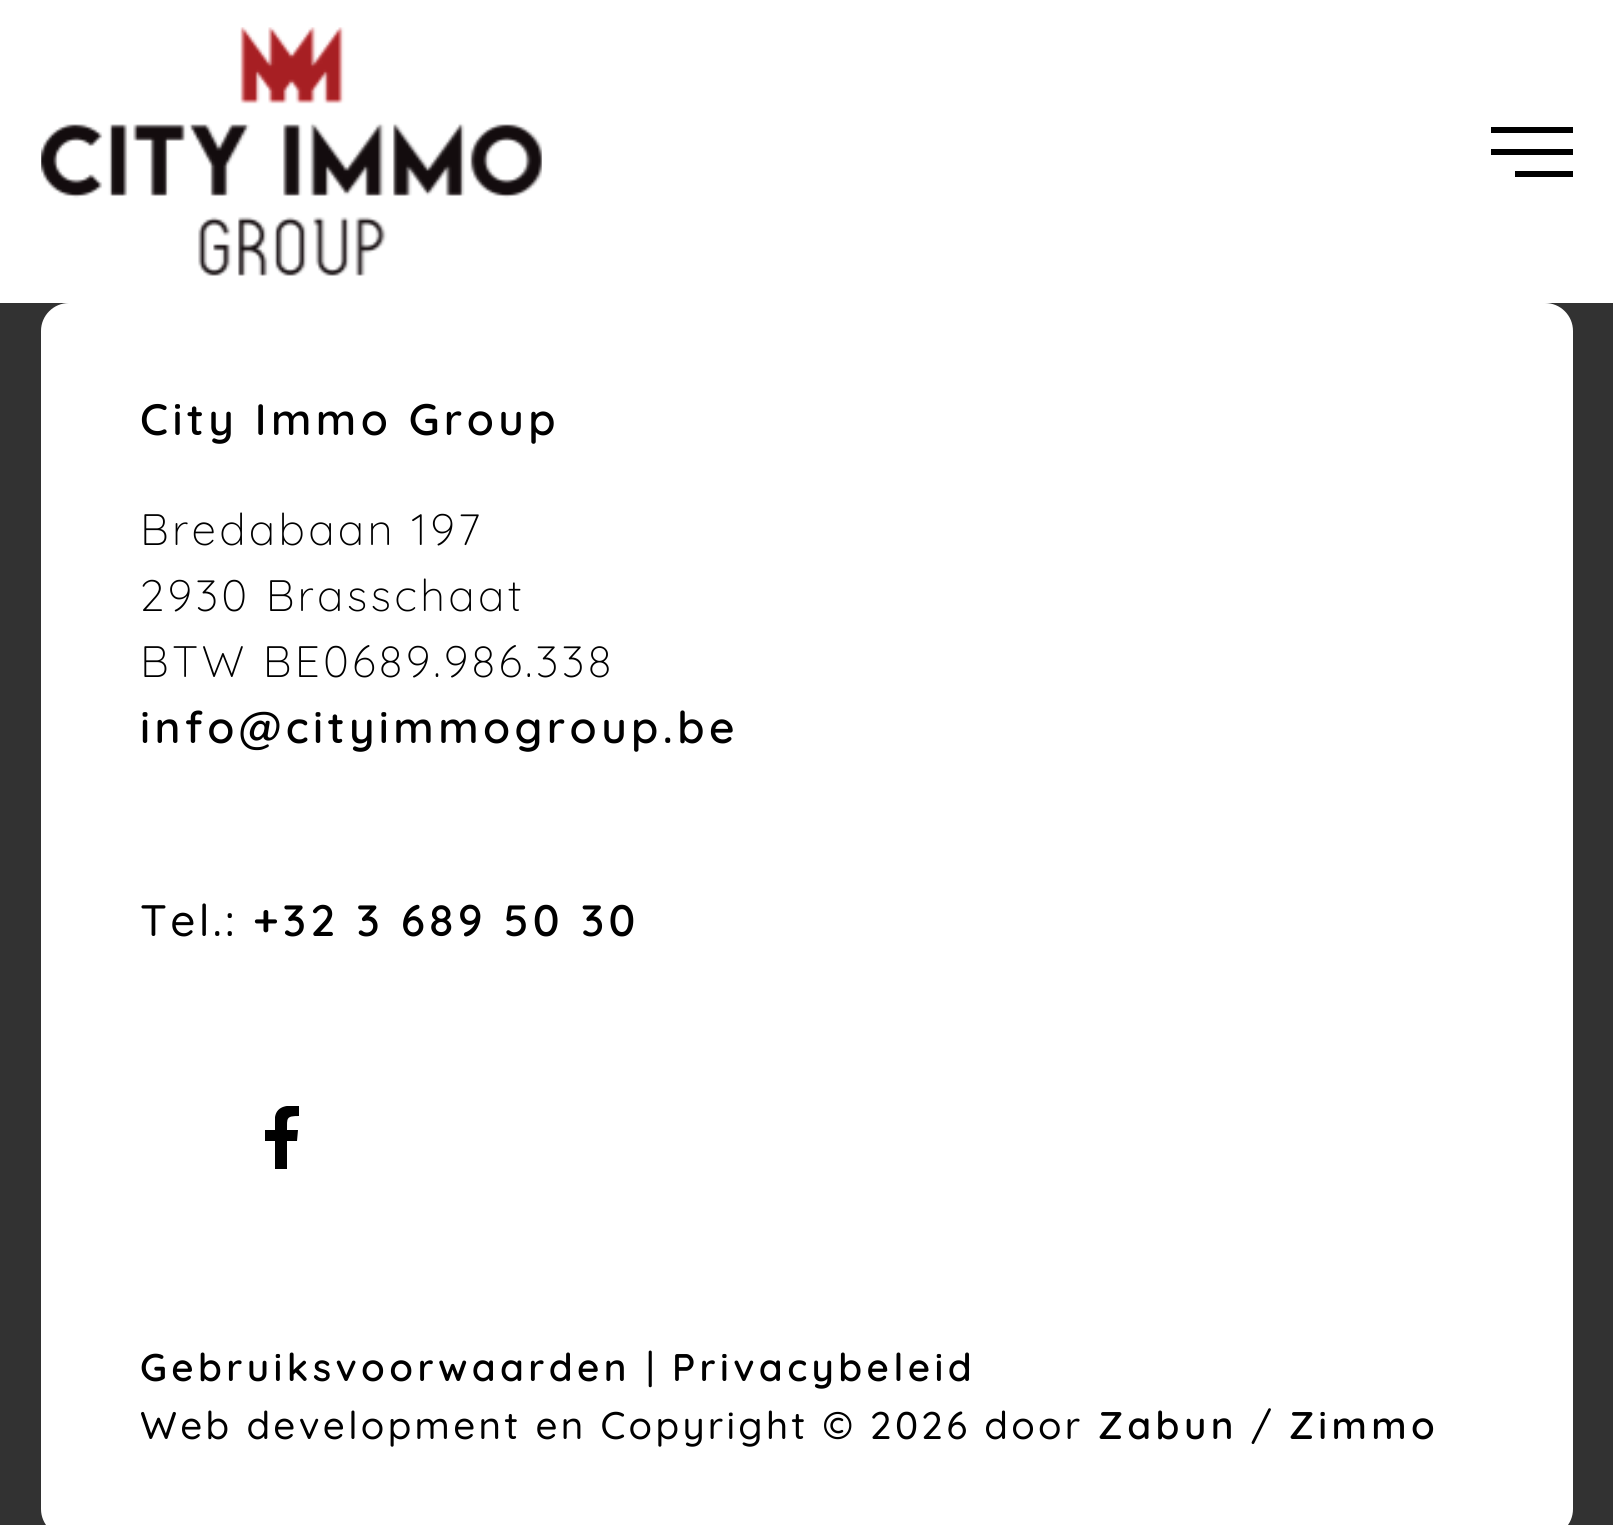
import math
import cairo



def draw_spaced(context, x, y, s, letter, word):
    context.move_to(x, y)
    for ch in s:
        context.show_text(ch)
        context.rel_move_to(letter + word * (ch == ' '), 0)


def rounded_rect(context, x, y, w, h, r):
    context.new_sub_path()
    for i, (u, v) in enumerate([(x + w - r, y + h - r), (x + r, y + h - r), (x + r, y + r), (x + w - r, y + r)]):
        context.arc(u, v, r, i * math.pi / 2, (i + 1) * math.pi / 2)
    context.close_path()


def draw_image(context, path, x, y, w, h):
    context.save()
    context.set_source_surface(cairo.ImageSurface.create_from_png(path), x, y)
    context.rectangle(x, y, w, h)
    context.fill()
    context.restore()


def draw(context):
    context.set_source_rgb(50 / 255, 50 / 255, 50 / 255)
    context.paint()
    context.set_source_rgb(1, 1, 1)
    context.rectangle(0, 0, 1613, 303)
    context.fill()
    draw_image(context, "images/1.png", 41, 27, 501, 249)
    context.set_source_rgb(0, 0, 0)
    context.rectangle(1491, 127, 82, 6)
    context.fill()
    context.rectangle(1491, 149, 82, 6)
    context.fill()
    context.rectangle(1515, 171, 58, 6)
    context.fill()
    context.set_source_rgb(1, 1, 1)
    rounded_rect(context, 41, 303, 1532, 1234, 28)
    context.fill()
    context.save()
    context.rectangle(250, 1106, 64, 63)
    context.clip()
    context.set_source_rgb(0, 0, 0)
    context.new_path()
    context.move_to(297, 1141)
    context.line_to(298, 1130)
    context.line_to(287, 1130)
    context.curve_to(287, 1118, 286, 1116, 299, 1116)
    context.line_to(299, 1106)
    context.curve_to(289, 1105, 277, 1105, 275, 1117)
    context.line_to(275, 1130)
    context.line_to(265, 1130)
    context.line_to(265, 1141)
    context.line_to(275, 1141)
    context.line_to(275, 1169)
    context.line_to(287, 1169)
    context.line_to(287, 1141)
    context.close_path()
    context.fill()
    context.restore()
    context.select_font_face("Quicksand SemiBold")
    context.set_font_size(44)
    context.set_source_rgb(0, 0, 0)
    draw_spaced(context, 140, 435, "City Immo Group", 4.4, 0)
    context.select_font_face("Quicksand Light")
    draw_spaced(context, 140, 545, "Bredabaan 197", 3.3, 0)
    draw_spaced(context, 140, 611, "2930 Brasschaat", 3.3, 0)
    draw_spaced(context, 140, 677, "BTW BE0689.986.338", 3.3, 0)
    context.select_font_face("Quicksand SemiBold")
    draw_spaced(context, 140, 743, "info@cityimmogroup.be", 4.4, 0)
    context.select_font_face("Quicksand Medium")
    draw_spaced(context, 140, 936, "Tel.:", 3.3, 0)
    context.select_font_face("Quicksand SemiBold")
    draw_spaced(context, 253, 936, "+32 3 689 50 30", 4.4, 0)
    context.set_font_size(38.5)
    draw_spaced(context, 140, 1381, "Gebruiksvoorwaarden", 4.4, 0)
    context.select_font_face("Quicksand Medium")
    draw_spaced(context, 646, 1381, "|", 3.3, 0)
    context.select_font_face("Quicksand SemiBold")
    draw_spaced(context, 672, 1381, "Privacybeleid", 4.4, 0)
    context.select_font_face("Quicksand Medium")
    draw_spaced(context, 140, 1439, "Web development en Copyright © 2026 door", 3.3, 0)
    context.select_font_face("Quicksand SemiBold")
    draw_spaced(context, 1098, 1439, "Zabun", 4.4, 0)
    context.select_font_face("Quicksand Medium")
    draw_spaced(context, 1251, 1439, "/", 3.3, 0)
    context.select_font_face("Quicksand SemiBold")
    draw_spaced(context, 1289, 1439, "Zimmo", 4.4, 0)


surface = cairo.ImageSurface(cairo.Format.RGB24, 1613, 1525)
context = cairo.Context(surface)
options = cairo.FontOptions()
options.set_hint_metrics(cairo.HintMetrics.OFF)
options.set_hint_style(cairo.HintStyle.NONE)
context.set_font_options(options)
context.set_miter_limit(4)
draw(context)
surface.write_to_png("out.png")
